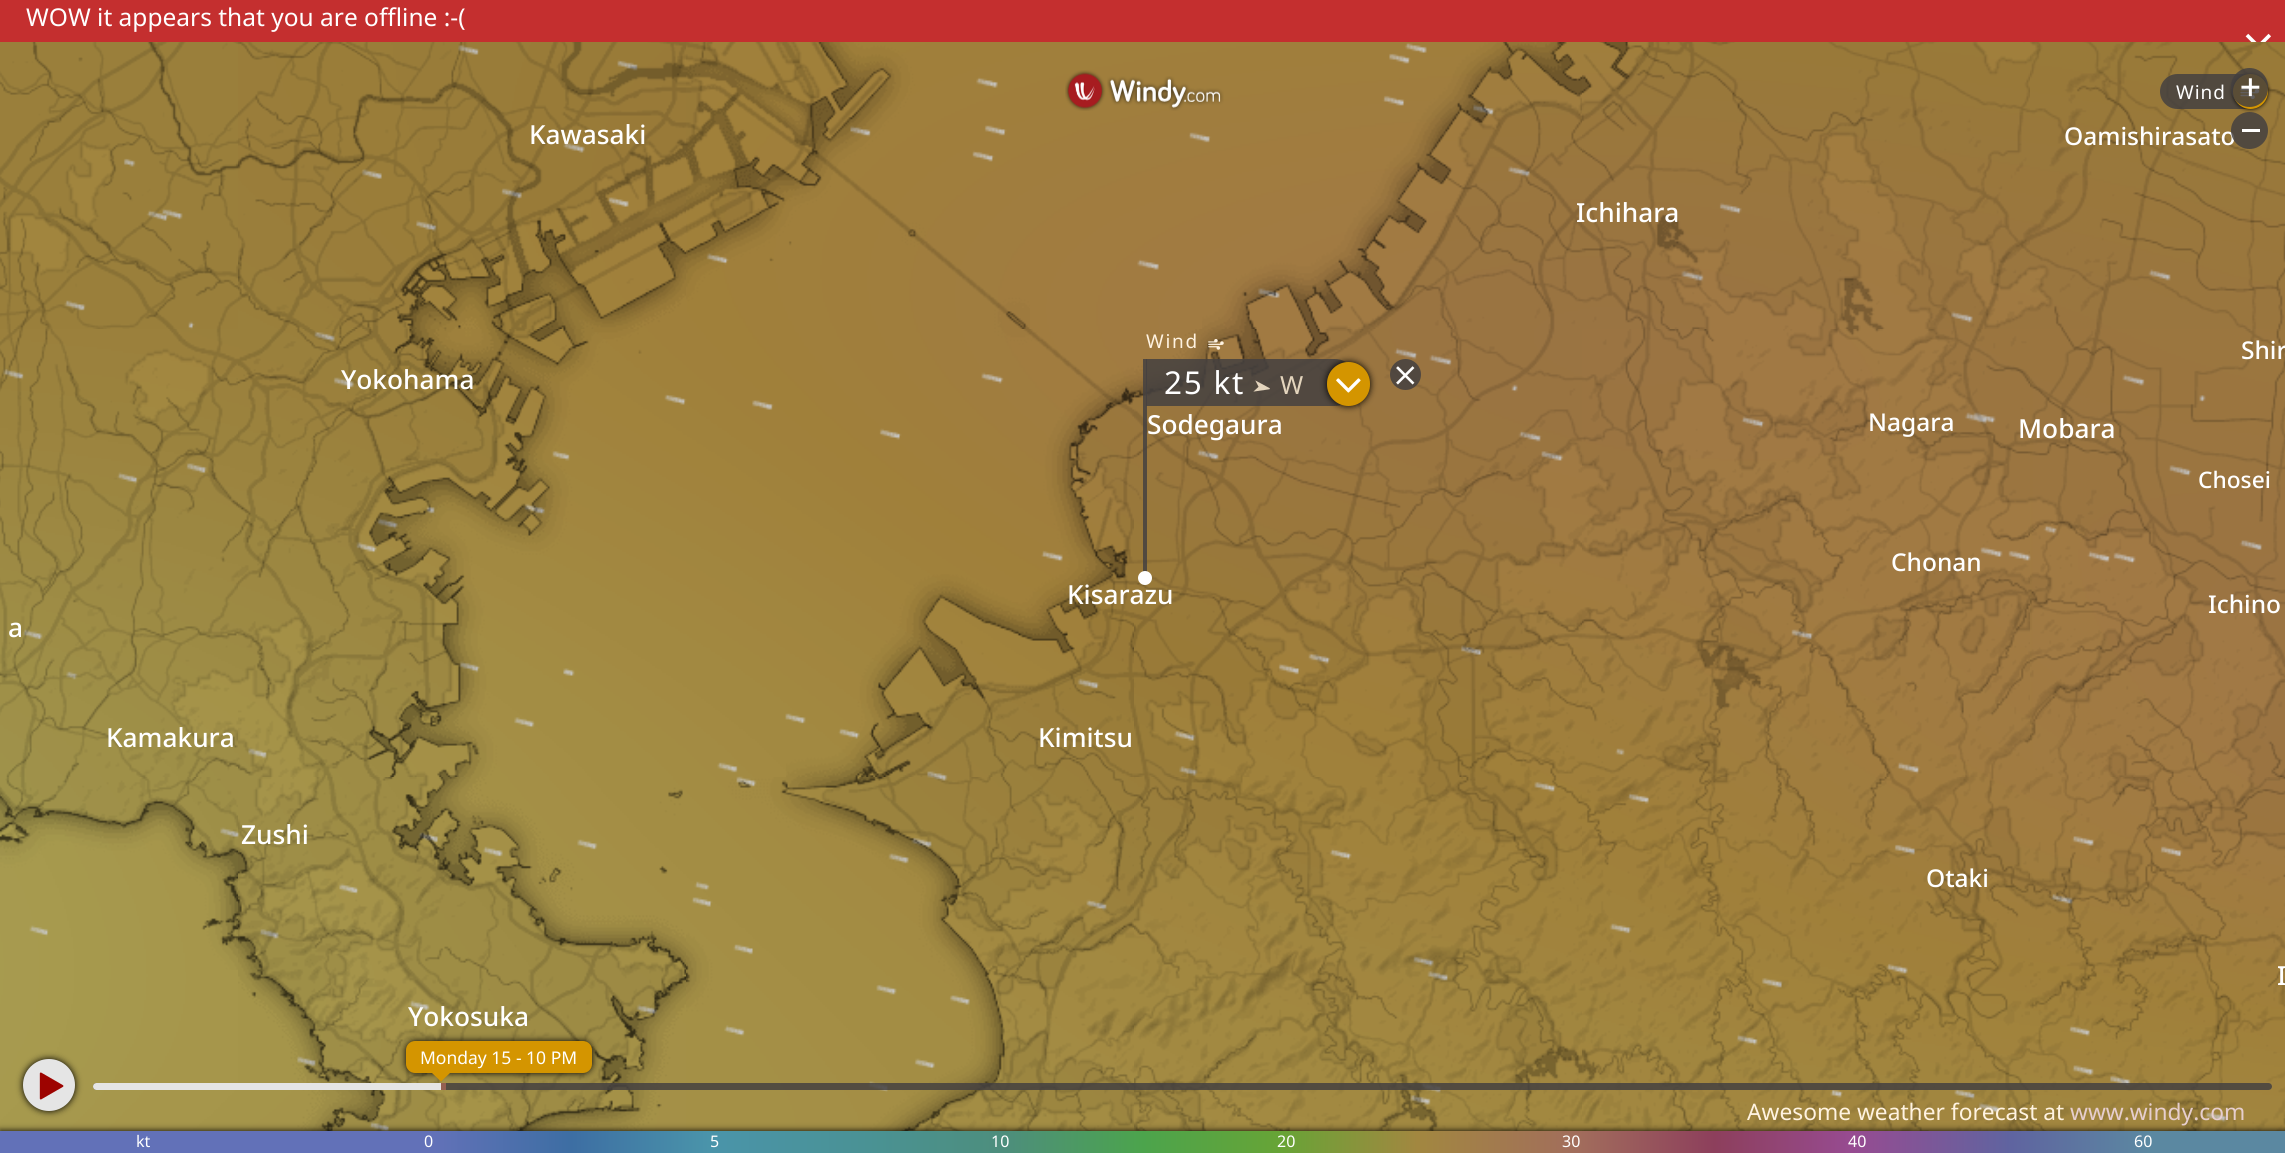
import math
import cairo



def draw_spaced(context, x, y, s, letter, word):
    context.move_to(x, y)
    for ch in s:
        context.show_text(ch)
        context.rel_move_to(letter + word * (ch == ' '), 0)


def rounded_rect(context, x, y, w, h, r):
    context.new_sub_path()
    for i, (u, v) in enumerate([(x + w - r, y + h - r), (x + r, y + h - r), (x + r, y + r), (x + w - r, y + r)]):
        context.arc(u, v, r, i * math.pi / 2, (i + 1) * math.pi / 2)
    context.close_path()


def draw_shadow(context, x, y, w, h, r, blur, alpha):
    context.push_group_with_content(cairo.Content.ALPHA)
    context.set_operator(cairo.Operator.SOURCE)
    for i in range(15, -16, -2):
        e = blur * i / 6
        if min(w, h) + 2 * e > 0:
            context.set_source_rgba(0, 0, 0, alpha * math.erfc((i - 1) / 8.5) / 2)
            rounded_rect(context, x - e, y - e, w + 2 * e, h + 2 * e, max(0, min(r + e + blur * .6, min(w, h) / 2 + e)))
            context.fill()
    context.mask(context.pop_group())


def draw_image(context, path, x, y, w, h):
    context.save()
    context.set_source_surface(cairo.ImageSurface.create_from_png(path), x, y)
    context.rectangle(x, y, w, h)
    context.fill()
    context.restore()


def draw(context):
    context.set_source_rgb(1, 1, 1)
    context.paint()
    context.set_source_rgb(196 / 255, 47 / 255, 47 / 255)
    context.rectangle(0, 0, 2285, 42)
    context.fill()
    draw_image(context, "images/1.png", 2245, 33, 26, 9)
    draw_image(context, "images/7.png", 686, 42, 448, 287)
    context.set_source_rgb(161 / 255, 133 / 255, 62 / 255)
    context.rectangle(0, 42, 238, 287)
    context.fill()
    draw_image(context, "images/6.png", 238, 42, 448, 287)
    draw_image(context, "images/8.png", 1134, 42, 448, 287)
    draw_image(context, "images/9.png", 1582, 42, 448, 287)
    draw_image(context, "images/10.png", 2030, 42, 255, 287)
    draw_image(context, "images/11.png", 0, 329, 238, 448)
    draw_image(context, "images/12.png", 238, 329, 448, 448)
    draw_image(context, "images/13.png", 686, 329, 448, 448)
    draw_image(context, "images/14.png", 1134, 329, 448, 448)
    draw_image(context, "images/15.png", 1582, 329, 448, 448)
    draw_image(context, "images/16.png", 2030, 329, 255, 448)
    draw_image(context, "images/17.png", 0, 777, 238, 354)
    draw_image(context, "images/18.png", 238, 777, 448, 354)
    draw_image(context, "images/19.png", 686, 777, 448, 354)
    draw_image(context, "images/20.png", 1134, 777, 448, 354)
    draw_image(context, "images/21.png", 1582, 777, 448, 354)
    draw_image(context, "images/22.png", 2030, 777, 255, 354)
    draw_image(context, "images/41.png", 3, 43, 2260, 1088)
    draw_image(context, "images/2.png", 1065, 70, 41, 41)
    draw_image(context, "images/26.png", 1202, 42, 380, 287)
    draw_image(context, "images/3.png", 1107, 76, 117, 35)
    draw_image(context, "images/28.png", 2030, 42, 255, 287)
    context.set_source_rgba(68 / 255, 65 / 255, 65 / 255, 0.84)
    rounded_rect(context, 2160, 74, 108, 35, 17.5)
    context.fill()
    context.set_source_rgb(0, 0, 0)
    draw_shadow(context, 2233, 74, 35, 35, 17.5, 2, 1)
    context.set_source_rgb(212 / 255, 149 / 255, 0)
    context.arc(2250.5, 91.5, 17.5, 0, 2 * math.pi)
    context.fill()
    draw_image(context, "images/4.png", 2240, 88, 20, 12)
    context.set_source_rgba(68 / 255, 65 / 255, 65 / 255, 0.84)
    rounded_rect(context, 2231, 68, 37, 39, 18.5)
    context.fill()
    draw_image(context, "images/5.png", 2241, 78, 19, 19)
    draw_image(context, "images/23.png", 0, 42, 238, 287)
    draw_image(context, "images/24.png", 238, 42, 448, 287)
    draw_image(context, "images/25.png", 686, 42, 344, 287)
    draw_image(context, "images/27.png", 1582, 42, 448, 287)
    draw_image(context, "images/29.png", 0, 329, 238, 448)
    draw_image(context, "images/30.png", 238, 329, 404, 448)
    draw_image(context, "images/31.png", 786, 329, 348, 448)
    draw_image(context, "images/32.png", 1134, 329, 448, 448)
    draw_image(context, "images/33.png", 1582, 329, 448, 448)
    draw_image(context, "images/34.png", 2030, 329, 255, 448)
    draw_image(context, "images/35.png", 0, 777, 238, 193)
    draw_image(context, "images/36.png", 238, 777, 448, 354)
    draw_image(context, "images/37.png", 686, 777, 448, 354)
    draw_image(context, "images/38.png", 1134, 777, 448, 354)
    draw_image(context, "images/39.png", 1582, 777, 448, 354)
    draw_image(context, "images/40.png", 2030, 777, 255, 354)
    context.rectangle(1143, 359, 4, 219)
    context.fill()
    context.set_source_rgb(1, 1, 1)
    context.arc(1145, 578, 7, 0, 2 * math.pi)
    context.fill()
    context.set_source_rgba(68 / 255, 65 / 255, 65 / 255, 0.84)
    context.new_path()
    context.move_to(1146, 359)
    context.line_to(1334.5, 359)
    context.curve_to(1347.5, 359, 1358, 369.5, 1358, 382.5)
    context.curve_to(1358, 395.5, 1347.5, 406, 1334.5, 406)
    context.line_to(1146, 406)
    context.close_path()
    context.fill()
    draw_image(context, "images/42.png", 1208, 339, 16, 11)
    draw_image(context, "images/43.png", 1253, 380, 17, 12)
    context.set_source_rgb(0, 0, 0)
    draw_shadow(context, 1327, 362, 43, 44, 21.5, 3.5, 1)
    context.set_source_rgb(212 / 255, 149 / 255, 0)
    rounded_rect(context, 1327, 362, 43, 44, 21.5)
    context.fill()
    draw_image(context, "images/44.png", 1336, 378, 25, 15)
    context.set_source_rgba(68 / 255, 65 / 255, 65 / 255, 0.84)
    context.arc(1405.5, 374.5, 15.5, 0, 2 * math.pi)
    context.fill()
    draw_image(context, "images/45.png", 1396, 366, 19, 19)
    context.set_source_rgb(0, 0, 0)
    draw_shadow(context, 23, 1059, 52, 52, 26, 3.5, 1)
    context.set_source_rgb(229 / 255, 229 / 255, 229 / 255)
    context.arc(49, 1085, 26, 0, 2 * math.pi)
    context.fill()
    draw_image(context, "images/46.png", 39, 1072, 25, 28)
    context.set_source_rgb(0, 0, 0)
    draw_shadow(context, 406, 1041, 186, 32, 9, 3.5, 1)
    context.set_source_rgb(212 / 255, 149 / 255, 0)
    rounded_rect(context, 406, 1041, 186, 32, 9)
    context.fill()
    context.new_path()
    context.move_to(432, 1073)
    context.line_to(450, 1073)
    context.line_to(441, 1081.5)
    context.close_path()
    context.fill()
    context.set_source_rgba(68 / 255, 65 / 255, 65 / 255, 0.84)
    rounded_rect(context, 93, 1083, 2179, 7, 3.5)
    context.fill()
    context.set_source_rgb(229 / 255, 229 / 255, 229 / 255)
    context.new_path()
    context.move_to(96.5, 1083)
    context.line_to(441, 1083)
    context.line_to(441, 1090)
    context.line_to(96.5, 1090)
    context.curve_to(94.5, 1090, 93, 1088.5, 93, 1086.5)
    context.curve_to(93, 1084.5, 94.5, 1083, 96.5, 1083)
    context.close_path()
    context.fill()
    context.set_source_rgb(148 / 255, 96 / 255, 81 / 255)
    context.rectangle(441, 1083, 5, 7)
    context.fill()
    context.set_source_rgb(0, 0, 0)
    draw_shadow(context, 0, 1131, 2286, 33, 0, 3.5, 1)
    gradient = cairo.LinearGradient(0, 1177, 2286, 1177)
    gradient.add_color_stop_rgba(0, 98 / 255, 113 / 255, 184 / 255, 1)
    gradient.add_color_stop_rgba(0.19, 98 / 255, 113 / 255, 184 / 255, 1)
    gradient.add_color_stop_rgba(0.25, 61 / 255, 110 / 255, 163 / 255, 1)
    gradient.add_color_stop_rgba(0.31, 74 / 255, 148 / 255, 170 / 255, 1)
    gradient.add_color_stop_rgba(0.38, 74 / 255, 146 / 255, 148 / 255, 1)
    gradient.add_color_stop_rgba(0.44, 77 / 255, 142 / 255, 124 / 255, 1)
    gradient.add_color_stop_rgba(0.5, 76 / 255, 164 / 255, 76 / 255, 1)
    gradient.add_color_stop_rgba(0.56, 103 / 255, 164 / 255, 54 / 255, 1)
    gradient.add_color_stop_rgba(0.62, 162 / 255, 135 / 255, 64 / 255, 1)
    gradient.add_color_stop_rgba(0.69, 162 / 255, 109 / 255, 92 / 255, 1)
    gradient.add_color_stop_rgba(0.75, 141 / 255, 63 / 255, 92 / 255, 1)
    gradient.add_color_stop_rgba(0.81, 151 / 255, 75 / 255, 145 / 255, 1)
    gradient.add_color_stop_rgba(0.88, 95 / 255, 100 / 255, 160 / 255, 1)
    gradient.add_color_stop_rgba(0.94, 91 / 255, 136 / 255, 161 / 255, 1)
    gradient.add_color_stop_rgba(1, 91 / 255, 136 / 255, 161 / 255, 1)
    context.set_source(gradient)
    context.rectangle(0, 1131, 2285, 22)
    context.fill()
    context.select_font_face("Noto Sans")
    context.set_font_size(24.5)
    context.set_source_rgb(1, 1, 1)
    context.move_to(26, 26)
    context.show_text("WOW it appears that you are offline :-(")
    context.set_font_size(19)
    draw_spaced(context, 2176, 99, "Wind", 1, 0)
    context.select_font_face("Noto Sans Medium")
    context.set_font_size(26.25)
    context.move_to(529, 144)
    context.show_text("Kawasaki")
    context.set_font_size(24.5)
    context.move_to(2064, 145)
    context.show_text("Oamishirasato")
    context.set_source_rgba(68 / 255, 65 / 255, 65 / 255, 0.84)
    context.new_path()
    context.arc(2249.5, 130.5, 18.5, 0, 2 * math.pi)
    context.fill()
    context.set_source_rgb(1, 1, 1)
    context.rectangle(2242, 129, 18, 3)
    context.fill()
    context.set_font_size(26.25)
    context.move_to(1576, 222)
    context.show_text("Ichihara")
    context.move_to(341, 389)
    context.show_text("Yokohama")
    context.set_font_size(24.5)
    context.move_to(2241, 359)
    context.show_text("Shir")
    context.set_font_size(26.25)
    context.move_to(2018, 438)
    context.show_text("Mobara")
    context.set_font_size(22.75)
    context.move_to(2198, 488)
    context.show_text("Chosei")
    context.set_font_size(24.5)
    context.move_to(2208, 613)
    context.show_text("Ichino")
    context.set_font_size(26.25)
    context.move_to(1147, 434)
    context.show_text("Sodegaura")
    context.set_font_size(24.5)
    context.move_to(1868, 431)
    context.show_text("Nagara")
    context.move_to(1891, 571)
    context.show_text("Chonan")
    context.set_font_size(26.25)
    context.move_to(8, 637)
    context.show_text("a")
    context.move_to(106, 747)
    context.show_text("Kamakura")
    context.move_to(1067, 604)
    context.show_text("Kisarazu")
    context.move_to(1038, 747)
    context.show_text("Kimitsu")
    context.move_to(241, 844)
    context.show_text("Zushi")
    context.move_to(408, 1026)
    context.show_text("Yokosuka")
    context.set_font_size(24.5)
    context.move_to(1926, 887)
    context.show_text("Otaki")
    context.set_font_size(26.25)
    context.move_to(2277, 985)
    context.show_text("I")
    context.select_font_face("Noto Sans")
    context.set_font_size(19)
    context.set_source_rgb(1, 243 / 255, 225 / 255)
    draw_spaced(context, 1146, 348, "Wind", 1.75, 0)
    context.set_font_size(31.5)
    context.set_source_rgb(1, 1, 1)
    draw_spaced(context, 1164, 394, "25 kt", 1.75, 0)
    context.set_font_size(25)
    context.set_source_rgb(228 / 255, 213 / 255, 189 / 255)
    draw_spaced(context, 1280, 394, "W", 1.75, 0)
    context.set_font_size(17.5)
    context.set_source_rgb(1, 1, 1)
    context.move_to(420, 1064)
    context.show_text("Monday 15 - 10 PM")
    context.set_font_size(22.75)
    context.set_source_rgb(1, 243 / 255, 225 / 255)
    context.move_to(1747, 1120)
    context.show_text("Awesome weather forecast at")
    context.set_source_rgb(230 / 255, 206 / 255, 206 / 255)
    context.move_to(2070, 1120)
    context.show_text("www.windy.com")
    context.set_font_size(16)
    context.set_source_rgb(1, 1, 1)
    context.move_to(136, 1147)
    context.show_text("kt")
    context.move_to(424, 1147)
    context.show_text("0")
    context.move_to(710, 1147)
    context.show_text("5")
    context.move_to(991, 1147)
    context.show_text("10")
    context.move_to(1277, 1147)
    context.show_text("20")
    context.move_to(1562, 1147)
    context.show_text("30")
    context.move_to(1848, 1147)
    context.show_text("40")
    context.move_to(2134, 1147)
    context.show_text("60")


surface = cairo.ImageSurface(cairo.Format.RGB24, 2285, 1153)
context = cairo.Context(surface)
options = cairo.FontOptions()
options.set_hint_metrics(cairo.HintMetrics.OFF)
options.set_hint_style(cairo.HintStyle.NONE)
context.set_font_options(options)
context.set_miter_limit(4)
draw(context)
surface.write_to_png("out.png")
